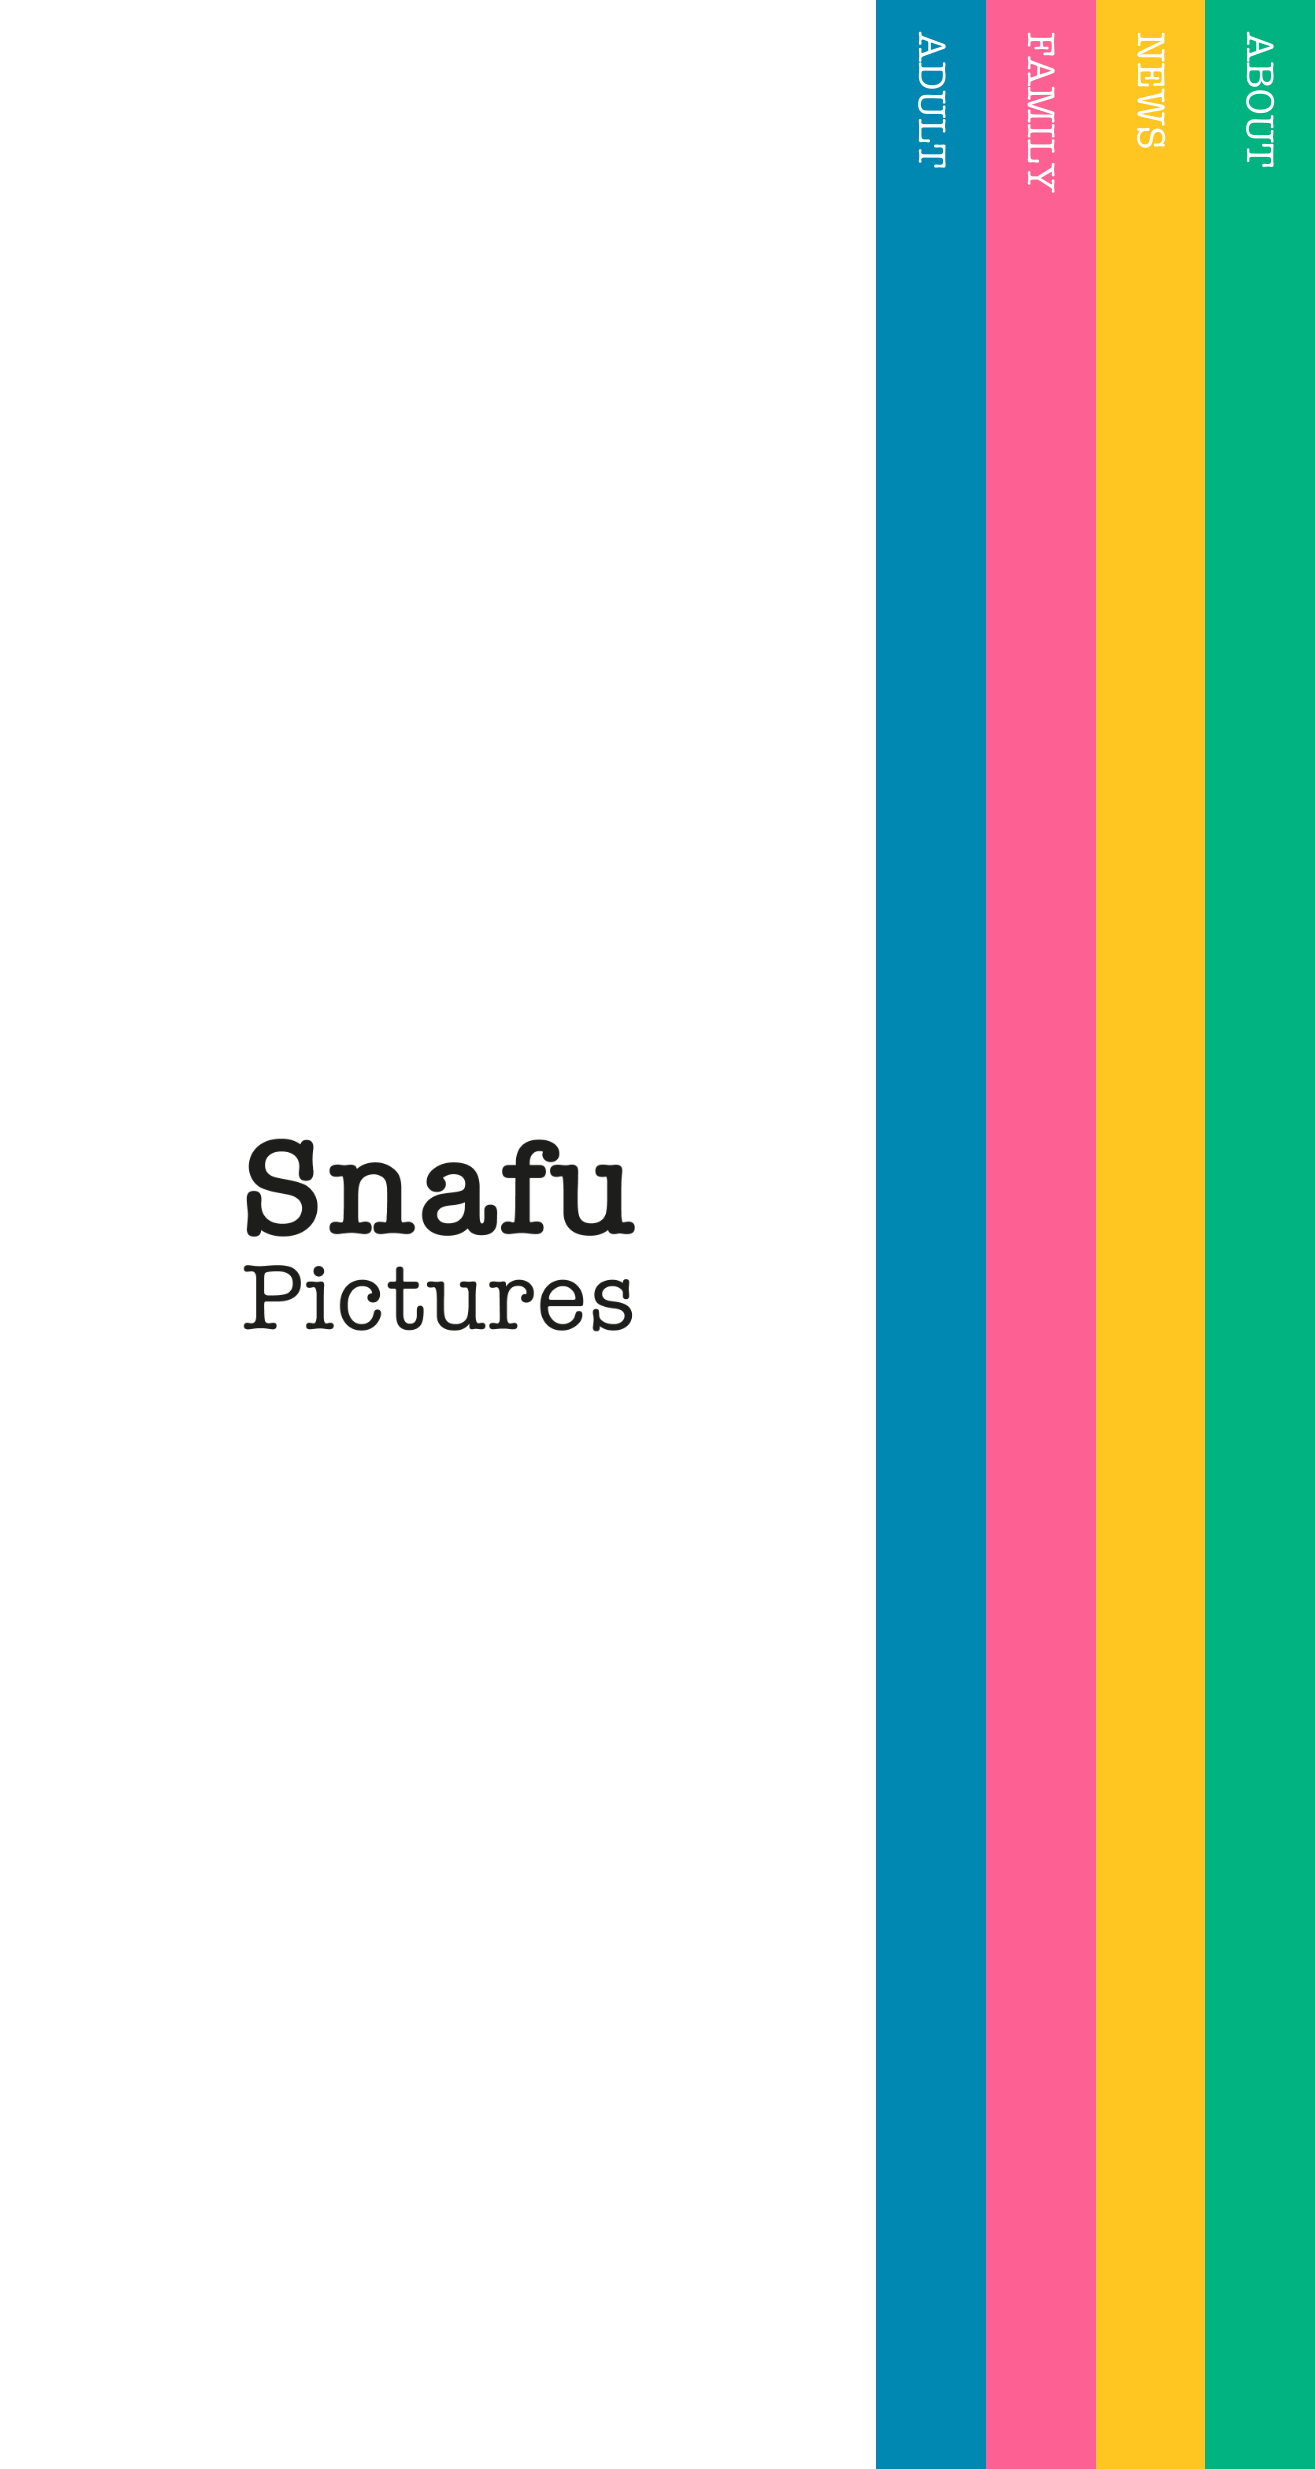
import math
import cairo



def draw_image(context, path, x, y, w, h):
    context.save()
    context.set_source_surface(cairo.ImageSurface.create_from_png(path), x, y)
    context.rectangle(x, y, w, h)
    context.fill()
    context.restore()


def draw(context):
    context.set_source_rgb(1, 1, 1)
    context.paint()
    context.set_source_rgb(0, 136 / 255, 179 / 255)
    context.rectangle(876, 0, 110, 2469)
    context.fill()
    context.set_source_rgb(253 / 255, 97 / 255, 147 / 255)
    context.rectangle(986, 0, 110, 2469)
    context.fill()
    context.set_source_rgb(1, 197 / 255, 32 / 255)
    context.rectangle(1096, 0, 109, 2469)
    context.fill()
    context.set_source_rgb(0, 179 / 255, 129 / 255)
    context.rectangle(1205, 0, 110, 2469)
    context.fill()
    draw_image(context, "images/1.png", 243, 1138, 392, 194)
    context.select_font_face("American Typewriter")
    context.set_font_size(39.5)
    context.set_source_rgb(1, 1, 1)
    context.save()
    context.translate(919, 32)
    context.rotate(90 * math.pi / 180)
    context.move_to(0, 0)
    context.show_text("ADULT")
    context.restore()
    context.save()
    context.translate(1028, 32)
    context.rotate(90 * math.pi / 180)
    context.move_to(0, 0)
    context.show_text("FAMILY")
    context.restore()
    context.save()
    context.translate(1138, 32)
    context.rotate(90 * math.pi / 180)
    context.move_to(0, 0)
    context.show_text("NEWS")
    context.restore()
    context.save()
    context.translate(1247, 32)
    context.rotate(90 * math.pi / 180)
    context.move_to(0, 0)
    context.show_text("ABOUT")
    context.restore()


surface = cairo.ImageSurface(cairo.Format.RGB24, 1315, 2469)
context = cairo.Context(surface)
options = cairo.FontOptions()
options.set_hint_metrics(cairo.HintMetrics.OFF)
options.set_hint_style(cairo.HintStyle.NONE)
context.set_font_options(options)
context.set_miter_limit(4)
draw(context)
surface.write_to_png("out.png")
